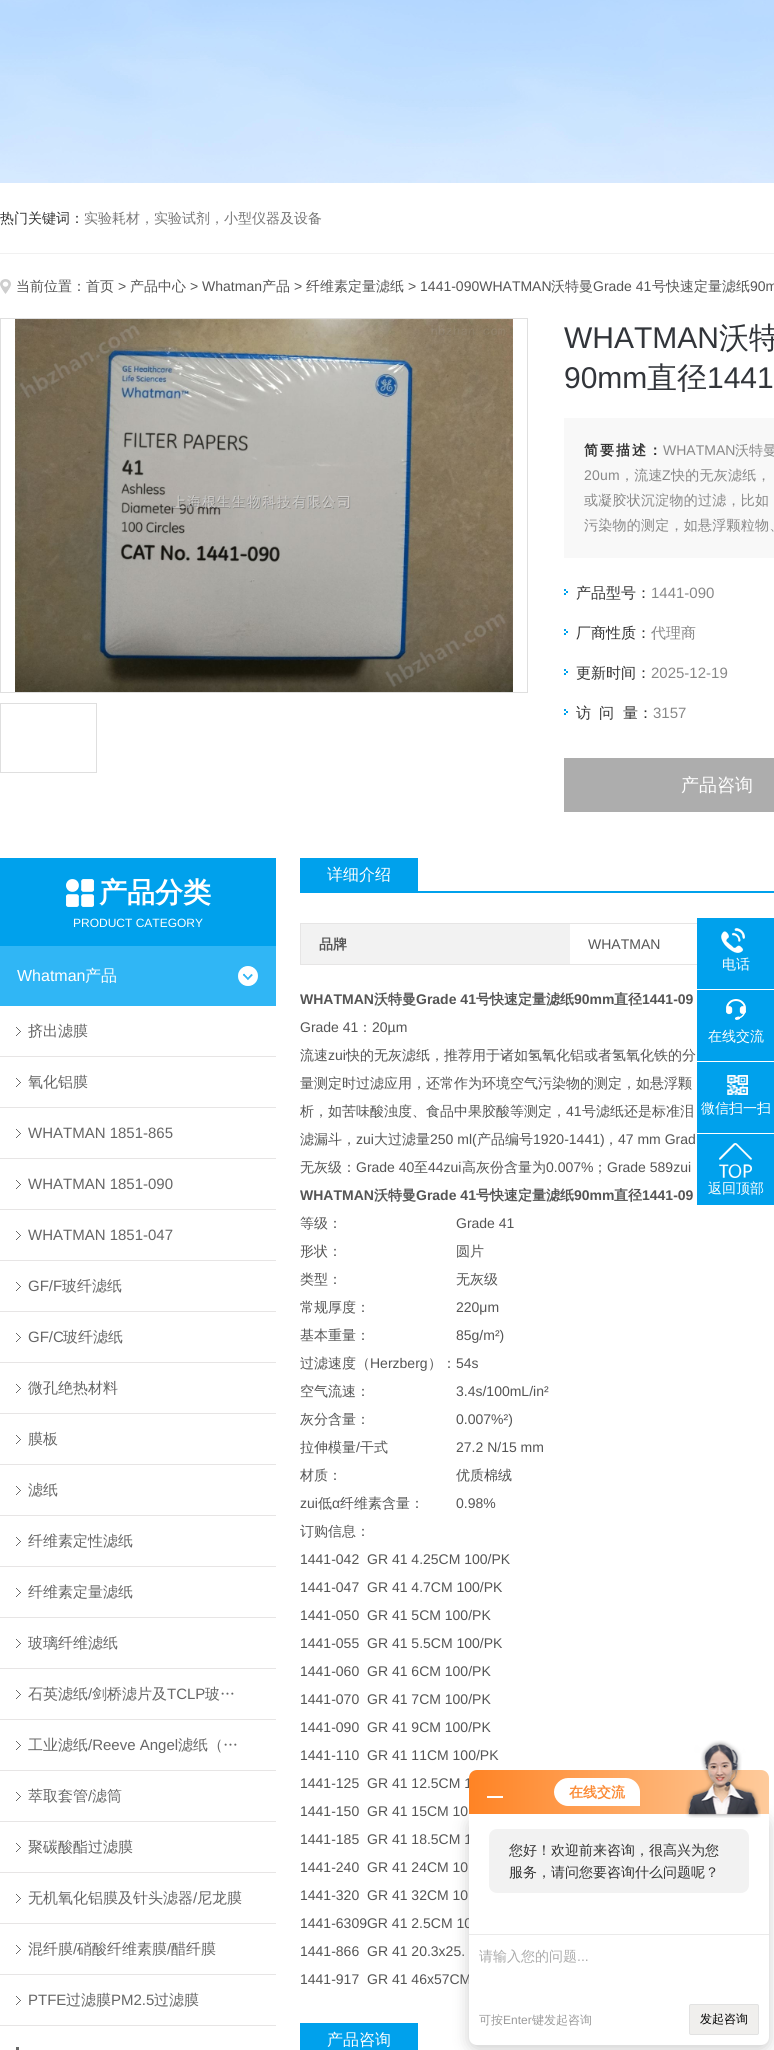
import math
import cairo



def draw_spaced(context, x, y, s, letter, word):
    context.move_to(x, y)
    for ch in s:
        context.show_text(ch)
        context.rel_move_to(letter + word * (ch == ' '), 0)


def rounded_rect(context, x, y, w, h, r):
    context.new_sub_path()
    for i, (u, v) in enumerate([(x + w - r, y + h - r), (x + r, y + h - r), (x + r, y + r), (x + w - r, y + r)]):
        context.arc(u, v, r, i * math.pi / 2, (i + 1) * math.pi / 2)
    context.close_path()


def draw_shadow(context, x, y, w, h, r, blur, alpha):
    context.push_group_with_content(cairo.Content.ALPHA)
    context.set_operator(cairo.Operator.SOURCE)
    for i in range(15, -16, -2):
        e = blur * i / 6
        if min(w, h) + 2 * e > 0:
            context.set_source_rgba(0, 0, 0, alpha * math.erfc((i - 1) / 8.5) / 2)
            rounded_rect(context, x - e, y - e, w + 2 * e, h + 2 * e, max(0, min(r + e + blur * .6, min(w, h) / 2 + e)))
            context.fill()
    context.mask(context.pop_group())


def draw_image(context, path, x, y, w, h):
    context.save()
    context.set_source_surface(cairo.ImageSurface.create_from_png(path), x, y)
    context.rectangle(x, y, w, h)
    context.fill()
    context.restore()


def draw(context):
    context.set_source_rgb(1, 1, 1)
    context.paint()
    draw_image(context, "images/1.png", 0, 0, 774, 183)
    context.set_source_rgb(241 / 255, 241 / 255, 241 / 255)
    context.rectangle(0, 253, 774, 1)
    context.fill()
    draw_image(context, "images/2.png", 0, 279, 11, 15)
    context.rectangle(0.5, 318.5, 527, 374)
    context.set_source_rgb(223 / 255, 223 / 255, 223 / 255)
    context.set_line_width(1)
    context.stroke()
    draw_image(context, "images/3.png", 15, 319, 498, 373)
    context.rectangle(0.5, 703.5, 96, 69)
    context.stroke()
    context.set_source_rgb(248 / 255, 248 / 255, 248 / 255)
    context.rectangle(564, 418, 210, 140)
    context.fill()
    draw_image(context, "images/4.png", 564, 589, 4, 6)
    draw_image(context, "images/4.png", 564, 629, 4, 6)
    draw_image(context, "images/4.png", 564, 669, 4, 6)
    draw_image(context, "images/4.png", 564, 709, 4, 6)
    context.set_source_rgb(173 / 255, 173 / 255, 173 / 255)
    context.rectangle(564, 758, 210, 54)
    context.fill()
    context.set_source_rgb(0, 161 / 255, 236 / 255)
    context.rectangle(0, 858, 276, 88)
    context.fill()
    draw_image(context, "images/5.png", 66, 879, 28, 28)
    context.set_source_rgb(48 / 255, 182 / 255, 245 / 255)
    context.rectangle(0, 946, 276, 60)
    context.fill()
    draw_image(context, "images/6.png", 238, 966, 20, 20)
    draw_image(context, "images/7.png", 16, 1027, 5, 9)
    draw_image(context, "images/7.png", 16, 1078, 5, 9)
    context.set_source_rgb(231 / 255, 229 / 255, 229 / 255)
    context.rectangle(0, 1056, 276, 1)
    context.fill()
    draw_image(context, "images/7.png", 16, 1129, 5, 9)
    context.rectangle(0, 1107, 276, 1)
    context.fill()
    draw_image(context, "images/7.png", 16, 1180, 5, 9)
    context.rectangle(0, 1158, 276, 1)
    context.fill()
    draw_image(context, "images/7.png", 16, 1231, 5, 9)
    context.rectangle(0, 1209, 276, 1)
    context.fill()
    draw_image(context, "images/7.png", 16, 1282, 5, 9)
    context.rectangle(0, 1260, 276, 1)
    context.fill()
    draw_image(context, "images/7.png", 16, 1333, 5, 9)
    context.rectangle(0, 1311, 276, 1)
    context.fill()
    draw_image(context, "images/7.png", 16, 1384, 5, 9)
    context.rectangle(0, 1362, 276, 1)
    context.fill()
    draw_image(context, "images/7.png", 16, 1435, 5, 9)
    context.rectangle(0, 1413, 276, 1)
    context.fill()
    draw_image(context, "images/7.png", 16, 1486, 5, 9)
    context.rectangle(0, 1464, 276, 1)
    context.fill()
    draw_image(context, "images/7.png", 16, 1537, 5, 9)
    context.rectangle(0, 1515, 276, 1)
    context.fill()
    draw_image(context, "images/7.png", 16, 1588, 5, 9)
    context.rectangle(0, 1566, 276, 1)
    context.fill()
    draw_image(context, "images/7.png", 16, 1639, 5, 9)
    context.rectangle(0, 1617, 276, 1)
    context.fill()
    draw_image(context, "images/7.png", 16, 1690, 5, 9)
    context.rectangle(0, 1668, 276, 1)
    context.fill()
    draw_image(context, "images/7.png", 16, 1741, 5, 9)
    context.rectangle(0, 1719, 276, 1)
    context.fill()
    draw_image(context, "images/7.png", 16, 1792, 5, 9)
    context.rectangle(0, 1770, 276, 1)
    context.fill()
    draw_image(context, "images/7.png", 16, 1843, 5, 9)
    context.rectangle(0, 1821, 276, 1)
    context.fill()
    draw_image(context, "images/7.png", 16, 1894, 5, 9)
    context.rectangle(0, 1872, 276, 1)
    context.fill()
    draw_image(context, "images/7.png", 16, 1945, 5, 9)
    context.rectangle(0, 1923, 276, 1)
    context.fill()
    draw_image(context, "images/7.png", 16, 1996, 5, 9)
    context.rectangle(0, 1974, 276, 1)
    context.fill()
    context.set_source_rgb(104 / 255, 104 / 255, 104 / 255)
    context.rectangle(16, 2047, 3, 3)
    context.fill()
    context.set_source_rgb(231 / 255, 229 / 255, 229 / 255)
    context.rectangle(0, 2025, 276, 1)
    context.fill()
    context.set_source_rgb(0, 161 / 255, 236 / 255)
    context.rectangle(300, 891, 474, 2)
    context.fill()
    context.rectangle(300, 858, 118, 33)
    context.fill()
    context.set_source_rgb(230 / 255, 229 / 255, 229 / 255)
    context.rectangle(300, 923, 397, 1)
    context.fill()
    context.rectangle(300, 923, 1, 42)
    context.fill()
    context.set_source_rgb(242 / 255, 242 / 255, 242 / 255)
    context.rectangle(301, 924, 269, 40)
    context.fill()
    context.set_source_rgb(230 / 255, 229 / 255, 229 / 255)
    context.rectangle(301, 964, 396, 1)
    context.fill()
    context.set_source_rgb(0, 161 / 255, 236 / 255)
    context.rectangle(300, 2023, 118, 27)
    context.fill()
    context.rectangle(697, 918, 77, 71)
    context.fill()
    draw_image(context, "images/8.png", 721, 928, 24, 25)
    context.rectangle(697, 990, 77, 71)
    context.fill()
    draw_image(context, "images/9.png", 726, 999, 20, 21)
    context.rectangle(697, 1062, 77, 71)
    context.fill()
    draw_image(context, "images/10.png", 727, 1075, 21, 20)
    context.rectangle(697, 1134, 77, 71)
    context.fill()
    draw_image(context, "images/11.png", 719, 1143, 33, 35)
    context.set_source_rgb(0, 0, 0)
    draw_shadow(context, 469, 1818, 300, 231, 8, 8, 0.2)
    context.select_font_face("WenQuanYi Zen Hei Medium")
    context.set_font_size(14)
    context.set_source_rgb(51 / 255, 51 / 255, 51 / 255)
    context.move_to(0, 223)
    context.show_text("热门关键词：")
    context.set_source_rgb(119 / 255, 119 / 255, 119 / 255)
    context.move_to(84, 223)
    context.show_text("实验耗材，实验试剂，小型仪器及设备")
    context.set_source_rgb(85 / 255, 85 / 255, 85 / 255)
    context.move_to(16, 291)
    context.show_text("当前位置：首页")
    context.select_font_face("Liberation Sans")
    context.move_to(118, 291)
    context.show_text(">")
    context.select_font_face("WenQuanYi Zen Hei Medium")
    context.move_to(130, 291)
    context.show_text("产品中心")
    context.select_font_face("Liberation Sans")
    context.move_to(190, 291)
    context.show_text("> Whatman")
    context.select_font_face("WenQuanYi Zen Hei Medium")
    context.move_to(262, 291)
    context.show_text("产品")
    context.select_font_face("Liberation Sans")
    context.move_to(294, 291)
    context.show_text(">")
    context.select_font_face("WenQuanYi Zen Hei Medium")
    context.move_to(306, 291)
    context.show_text("纤维素定量滤纸")
    context.select_font_face("Liberation Sans")
    context.move_to(408, 291)
    context.show_text("> 1441-090WHATMAN")
    context.select_font_face("WenQuanYi Zen Hei Medium")
    context.move_to(551, 291)
    context.show_text("沃特曼")
    context.select_font_face("Liberation Sans")
    context.move_to(593, 291)
    context.show_text("Grade 41")
    context.select_font_face("WenQuanYi Zen Hei Medium")
    context.move_to(652, 291)
    context.show_text("号快速定量滤纸")
    context.select_font_face("Liberation Sans")
    context.move_to(750, 291)
    context.show_text("90m")
    context.set_font_size(30)
    context.set_source_rgb(50 / 255, 53 / 255, 58 / 255)
    context.move_to(564, 348)
    context.show_text("WHATMAN")
    context.select_font_face("WenQuanYi Zen Hei Medium")
    context.move_to(719, 348)
    context.show_text("沃特")
    context.select_font_face("Liberation Sans")
    context.move_to(564, 388)
    context.show_text("90mm")
    context.select_font_face("WenQuanYi Zen Hei Medium")
    context.move_to(647, 388)
    context.show_text("直径")
    context.select_font_face("Liberation Sans")
    context.move_to(707, 388)
    context.show_text("1441")
    context.select_font_face("WenQuanYi Zen Hei", cairo.FontSlant.NORMAL, cairo.FontWeight.BOLD)
    context.set_font_size(14)
    context.set_source_rgb(51 / 255, 51 / 255, 51 / 255)
    draw_spaced(context, 584, 455, "简要描述：", 2, 0)
    context.select_font_face("Liberation Sans")
    context.set_source_rgb(136 / 255, 136 / 255, 136 / 255)
    context.move_to(663, 455)
    context.show_text("WHATMAN")
    context.select_font_face("WenQuanYi Zen Hei Medium")
    context.move_to(735, 455)
    context.show_text("沃特曼")
    context.select_font_face("Liberation Sans")
    draw_spaced(context, 584, 480, "20um", 0.25, 0)
    context.select_font_face("WenQuanYi Zen Hei Medium")
    draw_spaced(context, 620, 480, "，流速", 0.25, 0)
    context.select_font_face("Liberation Sans")
    draw_spaced(context, 662, 480, "Z", 0.25, 0)
    context.select_font_face("WenQuanYi Zen Hei Medium")
    draw_spaced(context, 671, 480, "快的无灰滤纸，", 0.25, 0)
    draw_spaced(context, 584, 505, "或凝胶状沉淀物的过滤，比如", 0.25, 0)
    draw_spaced(context, 584, 530, "污染物的测定，如悬浮颗粒物、", 0.25, 0)
    context.set_font_size(15)
    context.set_source_rgb(51 / 255, 51 / 255, 51 / 255)
    context.move_to(576, 598)
    context.show_text("产品型号：")
    context.select_font_face("Liberation Sans")
    context.set_source_rgb(136 / 255, 136 / 255, 136 / 255)
    context.move_to(651, 598)
    context.show_text("1441-090")
    context.select_font_face("WenQuanYi Zen Hei Medium")
    context.set_source_rgb(51 / 255, 51 / 255, 51 / 255)
    context.move_to(576, 638)
    context.show_text("厂商性质：")
    context.set_source_rgb(136 / 255, 136 / 255, 136 / 255)
    context.move_to(651, 638)
    context.show_text("代理商")
    context.set_source_rgb(51 / 255, 51 / 255, 51 / 255)
    context.move_to(576, 678)
    context.show_text("更新时间：")
    context.select_font_face("Liberation Sans")
    context.set_source_rgb(136 / 255, 136 / 255, 136 / 255)
    context.move_to(651, 678)
    context.show_text("2025-12-19")
    context.select_font_face("WenQuanYi Zen Hei Medium")
    context.set_source_rgb(51 / 255, 51 / 255, 51 / 255)
    context.move_to(576, 718)
    context.show_text("访")
    context.move_to(599, 718)
    context.show_text("问")
    context.move_to(623, 718)
    context.show_text("量：")
    context.select_font_face("Liberation Sans")
    context.set_source_rgb(136 / 255, 136 / 255, 136 / 255)
    context.move_to(653, 718)
    context.show_text("3157")
    context.select_font_face("WenQuanYi Zen Hei Medium")
    context.set_font_size(18)
    context.set_source_rgb(1, 1, 1)
    context.move_to(681, 791)
    context.show_text("产品咨询")
    context.select_font_face("WenQuanYi Zen Hei", cairo.FontSlant.NORMAL, cairo.FontWeight.BOLD)
    context.set_font_size(28)
    context.move_to(99, 902)
    context.show_text("产品分类")
    context.select_font_face("Liberation Sans")
    context.set_font_size(12)
    context.move_to(73, 927)
    context.show_text("PRODUCT CATEGORY")
    context.set_font_size(16)
    context.move_to(17, 981)
    context.show_text("Whatman")
    context.select_font_face("WenQuanYi Zen Hei Medium")
    context.move_to(85, 981)
    context.show_text("产品")
    context.set_font_size(15)
    context.set_source_rgb(102 / 255, 102 / 255, 102 / 255)
    context.move_to(28, 1036)
    context.show_text("挤出滤膜")
    context.move_to(28, 1087)
    context.show_text("氧化铝膜")
    context.select_font_face("Liberation Sans")
    context.move_to(28, 1138)
    context.show_text("WHATMAN 1851-865")
    context.move_to(28, 1189)
    context.show_text("WHATMAN 1851-090")
    context.move_to(28, 1240)
    context.show_text("WHATMAN 1851-047")
    context.move_to(28, 1291)
    context.show_text("GF/F")
    context.select_font_face("WenQuanYi Zen Hei Medium")
    context.move_to(62, 1291)
    context.show_text("玻纤滤纸")
    context.select_font_face("Liberation Sans")
    context.move_to(28, 1342)
    context.show_text("GF/C")
    context.select_font_face("WenQuanYi Zen Hei Medium")
    context.move_to(63, 1342)
    context.show_text("玻纤滤纸")
    context.move_to(28, 1393)
    context.show_text("微孔绝热材料")
    context.move_to(28, 1444)
    context.show_text("膜板")
    context.move_to(28, 1495)
    context.show_text("滤纸")
    context.move_to(28, 1546)
    context.show_text("纤维素定性滤纸")
    context.move_to(28, 1597)
    context.show_text("纤维素定量滤纸")
    context.move_to(28, 1648)
    context.show_text("玻璃纤维滤纸")
    context.move_to(28, 1699)
    context.show_text("石英滤纸")
    context.select_font_face("Liberation Sans")
    context.move_to(88, 1699)
    context.show_text("/")
    context.select_font_face("WenQuanYi Zen Hei Medium")
    context.move_to(92, 1699)
    context.show_text("剑桥滤片及")
    context.select_font_face("Liberation Sans")
    context.move_to(167, 1699)
    context.show_text("TCLP")
    context.select_font_face("WenQuanYi Zen Hei Medium")
    context.move_to(205, 1699)
    context.show_text("玻…")
    context.move_to(28, 1750)
    context.show_text("工业滤纸")
    context.select_font_face("Liberation Sans")
    context.move_to(88, 1750)
    context.show_text("/Reeve Angel")
    context.select_font_face("WenQuanYi Zen Hei Medium")
    context.move_to(178, 1750)
    context.show_text("滤纸（…")
    context.move_to(28, 1801)
    context.show_text("萃取套管")
    context.select_font_face("Liberation Sans")
    context.move_to(88, 1801)
    context.show_text("/")
    context.select_font_face("WenQuanYi Zen Hei Medium")
    context.move_to(92, 1801)
    context.show_text("滤筒")
    context.move_to(28, 1852)
    context.show_text("聚碳酸酯过滤膜")
    context.move_to(28, 1903)
    context.show_text("无机氧化铝膜及针头滤器")
    context.select_font_face("Liberation Sans")
    context.move_to(193, 1903)
    context.show_text("/")
    context.select_font_face("WenQuanYi Zen Hei Medium")
    context.move_to(197, 1903)
    context.show_text("尼龙膜")
    context.move_to(28, 1954)
    context.show_text("混纤膜")
    context.select_font_face("Liberation Sans")
    context.move_to(73, 1954)
    context.show_text("/")
    context.select_font_face("WenQuanYi Zen Hei Medium")
    context.move_to(77, 1954)
    context.show_text("硝酸纤维素膜")
    context.select_font_face("Liberation Sans")
    context.move_to(167, 1954)
    context.show_text("/")
    context.select_font_face("WenQuanYi Zen Hei Medium")
    context.move_to(171, 1954)
    context.show_text("醋纤膜")
    context.select_font_face("Liberation Sans")
    context.move_to(28, 2005)
    context.show_text("PTFE")
    context.select_font_face("WenQuanYi Zen Hei Medium")
    context.move_to(66, 2005)
    context.show_text("过滤膜")
    context.select_font_face("Liberation Sans")
    context.move_to(111, 2005)
    context.show_text("PM2.5")
    context.select_font_face("WenQuanYi Zen Hei Medium")
    context.move_to(154, 2005)
    context.show_text("过滤膜")
    context.set_font_size(16)
    context.set_source_rgb(1, 1, 1)
    context.move_to(327, 880)
    context.show_text("详细介绍")
    context.select_font_face("WenQuanYi Zen Hei", cairo.FontSlant.NORMAL, cairo.FontWeight.BOLD)
    context.set_font_size(14)
    context.set_source_rgb(85 / 255, 85 / 255, 85 / 255)
    context.move_to(319, 949)
    context.show_text("品牌")
    context.select_font_face("Liberation Sans")
    context.move_to(588, 949)
    context.show_text("WHATMAN")
    context.select_font_face("Liberation Sans", cairo.FontSlant.NORMAL, cairo.FontWeight.BOLD)
    context.move_to(300, 1004)
    context.show_text("WHATMAN")
    context.select_font_face("WenQuanYi Zen Hei", cairo.FontSlant.NORMAL, cairo.FontWeight.BOLD)
    context.move_to(374, 1004)
    context.show_text("沃特曼")
    context.select_font_face("Liberation Sans", cairo.FontSlant.NORMAL, cairo.FontWeight.BOLD)
    context.move_to(416, 1004)
    context.show_text("Grade 41")
    context.select_font_face("WenQuanYi Zen Hei", cairo.FontSlant.NORMAL, cairo.FontWeight.BOLD)
    context.move_to(476, 1004)
    context.show_text("号快速定量滤纸")
    context.select_font_face("Liberation Sans", cairo.FontSlant.NORMAL, cairo.FontWeight.BOLD)
    context.move_to(574, 1004)
    context.show_text("90mm")
    context.select_font_face("WenQuanYi Zen Hei", cairo.FontSlant.NORMAL, cairo.FontWeight.BOLD)
    context.move_to(614, 1004)
    context.show_text("直径")
    context.select_font_face("Liberation Sans", cairo.FontSlant.NORMAL, cairo.FontWeight.BOLD)
    context.move_to(642, 1004)
    context.show_text("1441-09")
    context.select_font_face("Liberation Sans")
    context.move_to(300, 1032)
    context.show_text("Grade 41")
    context.select_font_face("WenQuanYi Zen Hei Medium")
    context.move_to(358, 1032)
    context.show_text("：")
    context.select_font_face("Liberation Sans")
    context.move_to(372, 1032)
    context.show_text("20µm")
    context.select_font_face("WenQuanYi Zen Hei Medium")
    context.move_to(300, 1060)
    context.show_text("流速")
    context.select_font_face("Liberation Sans")
    context.move_to(328, 1060)
    context.show_text("zui")
    context.select_font_face("WenQuanYi Zen Hei Medium")
    context.move_to(346, 1060)
    context.show_text("快的无灰滤纸，推荐用于诸如氢氧化铝或者氢氧化铁的分")
    context.move_to(300, 1088)
    context.show_text("量测定时过滤应用，还常作为环境空气污染物的测定，如悬浮颗")
    context.move_to(300, 1116)
    context.show_text("析，如苦味酸浊度、食品中果胶酸等测定，")
    context.select_font_face("Liberation Sans")
    context.move_to(566, 1116)
    context.show_text("41")
    context.select_font_face("WenQuanYi Zen Hei Medium")
    context.move_to(582, 1116)
    context.show_text("号滤纸还是标准泪")
    context.move_to(300, 1144)
    context.show_text("滤漏斗，")
    context.select_font_face("Liberation Sans")
    context.move_to(356, 1144)
    context.show_text("zui")
    context.select_font_face("WenQuanYi Zen Hei Medium")
    context.move_to(374, 1144)
    context.show_text("大过滤量")
    context.select_font_face("Liberation Sans")
    context.move_to(430, 1144)
    context.show_text("250 ml(")
    context.select_font_face("WenQuanYi Zen Hei Medium")
    context.move_to(477, 1144)
    context.show_text("产品编号")
    context.select_font_face("Liberation Sans")
    context.move_to(533, 1144)
    context.show_text("1920-1441)")
    context.select_font_face("WenQuanYi Zen Hei Medium")
    context.move_to(604, 1144)
    context.show_text("，")
    context.select_font_face("Liberation Sans")
    context.move_to(618, 1144)
    context.show_text("47 mm Grad")
    context.select_font_face("WenQuanYi Zen Hei Medium")
    context.move_to(300, 1172)
    context.show_text("无灰级：")
    context.select_font_face("Liberation Sans")
    context.move_to(356, 1172)
    context.show_text("Grade 40")
    context.select_font_face("WenQuanYi Zen Hei Medium")
    context.move_to(414, 1172)
    context.show_text("至")
    context.select_font_face("Liberation Sans")
    context.move_to(428, 1172)
    context.show_text("44zui")
    context.select_font_face("WenQuanYi Zen Hei Medium")
    context.move_to(462, 1172)
    context.show_text("高灰份含量为")
    context.select_font_face("Liberation Sans")
    context.move_to(546, 1172)
    context.show_text("0.007%")
    context.select_font_face("WenQuanYi Zen Hei Medium")
    context.move_to(593, 1172)
    context.show_text("；")
    context.select_font_face("Liberation Sans")
    context.move_to(607, 1172)
    context.show_text("Grade 589zui")
    context.select_font_face("Liberation Sans", cairo.FontSlant.NORMAL, cairo.FontWeight.BOLD)
    context.move_to(300, 1200)
    context.show_text("WHATMAN")
    context.select_font_face("WenQuanYi Zen Hei", cairo.FontSlant.NORMAL, cairo.FontWeight.BOLD)
    context.move_to(374, 1200)
    context.show_text("沃特曼")
    context.select_font_face("Liberation Sans", cairo.FontSlant.NORMAL, cairo.FontWeight.BOLD)
    context.move_to(416, 1200)
    context.show_text("Grade 41")
    context.select_font_face("WenQuanYi Zen Hei", cairo.FontSlant.NORMAL, cairo.FontWeight.BOLD)
    context.move_to(476, 1200)
    context.show_text("号快速定量滤纸")
    context.select_font_face("Liberation Sans", cairo.FontSlant.NORMAL, cairo.FontWeight.BOLD)
    context.move_to(574, 1200)
    context.show_text("90mm")
    context.select_font_face("WenQuanYi Zen Hei", cairo.FontSlant.NORMAL, cairo.FontWeight.BOLD)
    context.move_to(614, 1200)
    context.show_text("直径")
    context.select_font_face("Liberation Sans", cairo.FontSlant.NORMAL, cairo.FontWeight.BOLD)
    context.move_to(642, 1200)
    context.show_text("1441-09")
    context.select_font_face("WenQuanYi Zen Hei Medium")
    context.move_to(300, 1228)
    context.show_text("等级：")
    context.select_font_face("Liberation Sans")
    context.move_to(456, 1228)
    context.show_text("Grade 41")
    context.select_font_face("WenQuanYi Zen Hei Medium")
    context.move_to(300, 1256)
    context.show_text("形状：")
    context.move_to(456, 1256)
    context.show_text("圆片")
    context.move_to(300, 1284)
    context.show_text("类型：")
    context.move_to(456, 1284)
    context.show_text("无灰级")
    context.move_to(300, 1312)
    context.show_text("常规厚度：")
    context.select_font_face("Liberation Sans")
    context.move_to(456, 1312)
    context.show_text("220μm")
    context.select_font_face("WenQuanYi Zen Hei Medium")
    context.move_to(300, 1340)
    context.show_text("基本重量：")
    context.select_font_face("Liberation Sans")
    context.move_to(456, 1340)
    context.show_text("85g/m²)")
    context.select_font_face("WenQuanYi Zen Hei Medium")
    context.move_to(300, 1368)
    context.show_text("过滤速度（")
    context.select_font_face("Liberation Sans")
    context.move_to(370, 1368)
    context.show_text("Herzberg")
    context.select_font_face("WenQuanYi Zen Hei Medium")
    context.move_to(428, 1368)
    context.show_text("）：")
    context.select_font_face("Liberation Sans")
    context.move_to(456, 1368)
    context.show_text("54s")
    context.select_font_face("WenQuanYi Zen Hei Medium")
    context.move_to(300, 1396)
    context.show_text("空气流速：")
    context.select_font_face("Liberation Sans")
    context.move_to(456, 1396)
    context.show_text("3.4s/100mL/in²")
    context.select_font_face("WenQuanYi Zen Hei Medium")
    context.move_to(300, 1424)
    context.show_text("灰分含量：")
    context.select_font_face("Liberation Sans")
    context.move_to(456, 1424)
    context.show_text("0.007%²)")
    context.select_font_face("WenQuanYi Zen Hei Medium")
    context.move_to(300, 1452)
    context.show_text("拉伸模量")
    context.select_font_face("Liberation Sans")
    context.move_to(356, 1452)
    context.show_text("/")
    context.select_font_face("WenQuanYi Zen Hei Medium")
    context.move_to(360, 1452)
    context.show_text("干式")
    context.select_font_face("Liberation Sans")
    context.move_to(456, 1452)
    context.show_text("27.2 N/15 mm")
    context.select_font_face("WenQuanYi Zen Hei Medium")
    context.move_to(300, 1480)
    context.show_text("材质：")
    context.move_to(456, 1480)
    context.show_text("优质棉绒")
    context.select_font_face("Liberation Sans")
    context.move_to(300, 1508)
    context.show_text("zui")
    context.select_font_face("WenQuanYi Zen Hei Medium")
    context.move_to(318, 1508)
    context.show_text("低")
    context.select_font_face("Liberation Sans")
    context.move_to(332, 1508)
    context.show_text("α")
    context.select_font_face("WenQuanYi Zen Hei Medium")
    context.move_to(340, 1508)
    context.show_text("纤维素含量：")
    context.select_font_face("Liberation Sans")
    context.move_to(456, 1508)
    context.show_text("0.98%")
    context.select_font_face("WenQuanYi Zen Hei Medium")
    context.move_to(300, 1536)
    context.show_text("订购信息：")
    context.select_font_face("Liberation Sans")
    context.move_to(300, 1564)
    context.show_text("1441-042")
    context.move_to(367, 1564)
    context.show_text("GR 41 4.25CM 100/PK")
    context.move_to(300, 1592)
    context.show_text("1441-047")
    context.move_to(367, 1592)
    context.show_text("GR 41 4.7CM 100/PK")
    context.move_to(300, 1620)
    context.show_text("1441-050")
    context.move_to(367, 1620)
    context.show_text("GR 41 5CM 100/PK")
    context.move_to(300, 1648)
    context.show_text("1441-055")
    context.move_to(367, 1648)
    context.show_text("GR 41 5.5CM 100/PK")
    context.move_to(300, 1676)
    context.show_text("1441-060")
    context.move_to(367, 1676)
    context.show_text("GR 41 6CM 100/PK")
    context.move_to(300, 1704)
    context.show_text("1441-070")
    context.move_to(367, 1704)
    context.show_text("GR 41 7CM 100/PK")
    context.move_to(300, 1732)
    context.show_text("1441-090")
    context.move_to(367, 1732)
    context.show_text("GR 41 9CM 100/PK")
    context.move_to(300, 1760)
    context.show_text("1441-110")
    context.move_to(367, 1760)
    context.show_text("GR 41 11CM 100/PK")
    context.move_to(300, 1788)
    context.show_text("1441-125")
    context.move_to(367, 1788)
    context.show_text("GR 41 12.5CM 1")
    context.move_to(300, 1816)
    context.show_text("1441-150")
    context.move_to(367, 1816)
    context.show_text("GR 41 15CM 10")
    context.move_to(300, 1844)
    context.show_text("1441-185")
    context.move_to(367, 1844)
    context.show_text("GR 41 18.5CM 1")
    context.move_to(300, 1872)
    context.show_text("1441-240")
    context.move_to(367, 1872)
    context.show_text("GR 41 24CM 10")
    context.move_to(300, 1900)
    context.show_text("1441-320")
    context.move_to(367, 1900)
    context.show_text("GR 41 32CM 10")
    context.move_to(300, 1928)
    context.show_text("1441-6309GR 41 2.5CM 10")
    context.move_to(300, 1956)
    context.show_text("1441-866")
    context.move_to(367, 1956)
    context.show_text("GR 41 20.3x25.")
    context.move_to(300, 1984)
    context.show_text("1441-917")
    context.move_to(367, 1984)
    context.show_text("GR 41 46x57CM")
    context.select_font_face("WenQuanYi Zen Hei Medium")
    context.set_font_size(16)
    context.set_source_rgb(1, 1, 1)
    context.move_to(327, 2045)
    context.show_text("产品咨询")
    context.set_font_size(14)
    context.move_to(722, 969)
    context.show_text("电话")
    context.move_to(708, 1041)
    context.show_text("在线交流")
    context.move_to(701, 1113)
    context.show_text("微信扫一扫")
    context.move_to(708, 1193)
    context.show_text("返回顶部")
    gradient = cairo.LinearGradient(469, 1792, 769, 1792)
    gradient.add_color_stop_rgba(0, 1, 131 / 255, 36 / 255, 1)
    gradient.add_color_stop_rgba(1, 254 / 255, 203 / 255, 156 / 255, 1)
    context.set_source(gradient)
    context.new_path()
    context.move_to(477, 1770)
    context.line_to(761, 1770)
    context.curve_to(765.5, 1770, 769, 1773.5, 769, 1778)
    context.line_to(769, 1814)
    context.line_to(469, 1814)
    context.line_to(469, 1778)
    context.curve_to(469, 1773.5, 472.5, 1770, 477, 1770)
    context.close_path()
    context.fill()
    context.set_source_rgb(1, 1, 1)
    context.rectangle(487, 1796, 16, 2)
    context.fill()
    context.new_path()
    context.move_to(568, 1778)
    context.line_to(626, 1778)
    context.curve_to(633.5, 1778, 640, 1784.5, 640, 1792)
    context.line_to(640, 1806)
    context.line_to(568, 1806)
    context.curve_to(560.5, 1806, 554, 1799.5, 554, 1792)
    context.curve_to(554, 1784.5, 560.5, 1778, 568, 1778)
    context.close_path()
    context.fill()
    context.select_font_face("WenQuanYi Zen Hei", cairo.FontSlant.NORMAL, cairo.FontWeight.BOLD)
    context.set_source_rgb(251 / 255, 139 / 255, 54 / 255)
    context.move_to(569, 1797)
    context.show_text("在线交流")
    context.set_source_rgb(1, 1, 1)
    context.new_path()
    context.move_to(469, 1814)
    context.line_to(769, 1814)
    context.line_to(769, 2037)
    context.curve_to(769, 2041.5, 765.5, 2045, 761, 2045)
    context.line_to(477, 2045)
    context.curve_to(472.5, 2045, 469, 2041.5, 469, 2037)
    context.close_path()
    context.fill()
    draw_image(context, "images/12.png", 685, 1740, 76, 78)
    context.set_source_rgb(242 / 255, 242 / 255, 242 / 255)
    rounded_rect(context, 489, 1829, 260, 64, 8)
    context.fill()
    context.select_font_face("WenQuanYi Zen Hei Medium")
    context.set_source_rgb(51 / 255, 51 / 255, 51 / 255)
    context.move_to(509, 1855)
    context.show_text("您好！欢迎前来咨询，很高兴为您")
    context.move_to(509, 1877)
    context.show_text("服务，请问您要咨询什么问题呢？")
    context.set_source_rgb(234 / 255, 234 / 255, 234 / 255)
    context.rectangle(469, 1934, 300, 1)
    context.fill()
    context.set_source_rgb(170 / 255, 170 / 255, 170 / 255)
    context.move_to(479, 1961)
    context.show_text("请输入您的问题")
    context.select_font_face("Liberation Sans")
    context.move_to(577, 1961)
    context.show_text("...")
    context.select_font_face("WenQuanYi Zen Hei Medium")
    context.set_font_size(12)
    context.set_source_rgb(153 / 255, 153 / 255, 153 / 255)
    context.move_to(479, 2024)
    context.show_text("可按")
    context.select_font_face("Liberation Sans")
    context.move_to(503, 2024)
    context.show_text("Enter")
    context.select_font_face("WenQuanYi Zen Hei Medium")
    context.move_to(532, 2024)
    context.show_text("键发起咨询")
    context.set_source_rgb(240 / 255, 239 / 255, 237 / 255)
    rounded_rect(context, 689.5, 2004.5, 69, 30, 1.5)
    context.fill_preserve()
    context.set_source_rgb(226 / 255, 226 / 255, 226 / 255)
    context.stroke()
    context.set_source_rgb(0, 0, 0)
    context.move_to(700, 2023)
    context.show_text("发起咨询")


surface = cairo.ImageSurface(cairo.Format.RGB24, 774, 2050)
context = cairo.Context(surface)
options = cairo.FontOptions()
options.set_hint_metrics(cairo.HintMetrics.OFF)
options.set_hint_style(cairo.HintStyle.NONE)
context.set_font_options(options)
context.set_miter_limit(4)
draw(context)
surface.write_to_png("out.png")
